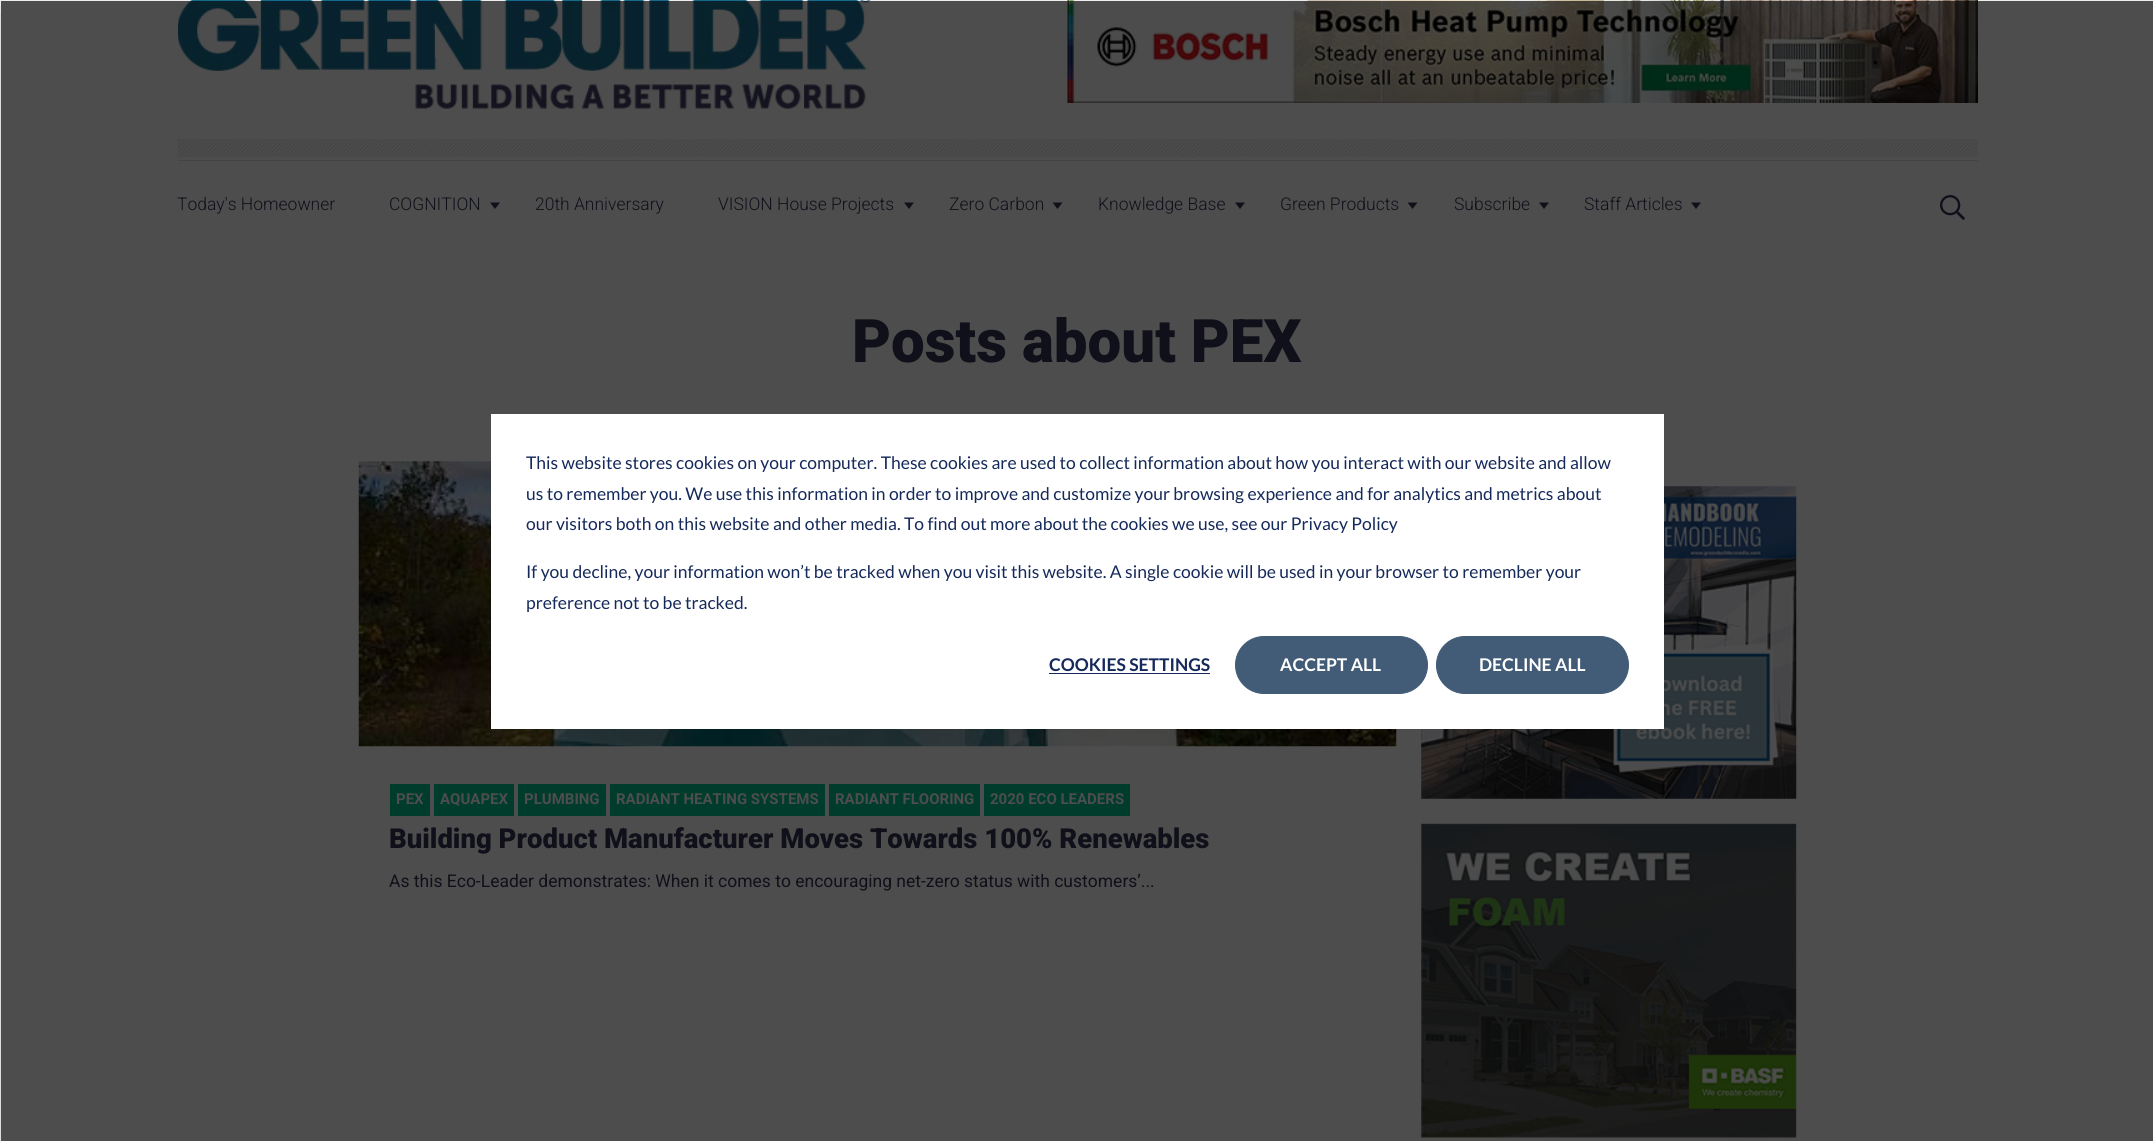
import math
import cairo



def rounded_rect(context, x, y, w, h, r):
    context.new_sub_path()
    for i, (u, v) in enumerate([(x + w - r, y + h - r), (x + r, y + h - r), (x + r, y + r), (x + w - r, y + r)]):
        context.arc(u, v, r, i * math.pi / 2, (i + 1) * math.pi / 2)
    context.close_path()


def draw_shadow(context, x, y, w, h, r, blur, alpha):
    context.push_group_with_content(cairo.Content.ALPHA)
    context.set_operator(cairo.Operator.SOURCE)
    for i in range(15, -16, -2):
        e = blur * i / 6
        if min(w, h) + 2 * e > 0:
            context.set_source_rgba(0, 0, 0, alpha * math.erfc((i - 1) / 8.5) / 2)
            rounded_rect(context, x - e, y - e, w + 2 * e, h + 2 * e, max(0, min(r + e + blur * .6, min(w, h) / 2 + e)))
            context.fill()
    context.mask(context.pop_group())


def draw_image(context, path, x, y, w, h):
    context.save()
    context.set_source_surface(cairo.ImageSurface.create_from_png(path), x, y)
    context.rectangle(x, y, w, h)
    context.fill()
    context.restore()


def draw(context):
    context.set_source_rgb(1, 1, 1)
    context.paint()
    context.set_source_rgb(77 / 255, 77 / 255, 77 / 255)
    context.rectangle(1, 1, 2152, 1140)
    context.fill()
    context.set_source_rgb(68 / 255, 68 / 255, 68 / 255)
    context.rectangle(178, 160, 1800, 1)
    context.fill()
    draw_image(context, "images/1.png", 178, 0, 693, 109)
    draw_image(context, "images/2.png", 1067, 0, 911, 103)
    draw_image(context, "images/3.png", 177, 139, 1801, 19)
    context.set_source_rgb(16 / 255, 16 / 255, 26 / 255)
    context.new_path()
    context.move_to(490, 202.5)
    context.line_to(500, 202.5)
    context.line_to(495, 209)
    context.close_path()
    context.fill()
    context.new_path()
    context.move_to(904, 202.5)
    context.line_to(914, 202.5)
    context.line_to(909, 209)
    context.close_path()
    context.fill()
    context.new_path()
    context.move_to(1052.5, 202.5)
    context.line_to(1062.5, 202.5)
    context.line_to(1057.5, 209)
    context.close_path()
    context.fill()
    context.new_path()
    context.move_to(1235, 202.5)
    context.line_to(1245, 202.5)
    context.line_to(1240, 209)
    context.close_path()
    context.fill()
    context.new_path()
    context.move_to(1407.5, 202.5)
    context.line_to(1417.5, 202.5)
    context.line_to(1412.5, 209)
    context.close_path()
    context.fill()
    context.new_path()
    context.move_to(1539, 202.5)
    context.line_to(1549, 202.5)
    context.line_to(1544, 209)
    context.close_path()
    context.fill()
    context.new_path()
    context.move_to(1691, 202.5)
    context.line_to(1701, 202.5)
    context.line_to(1696, 209)
    context.close_path()
    context.fill()
    draw_image(context, "images/4.png", 1940, 195, 25, 25)
    draw_image(context, "images/5.png", 358, 461, 1039, 286)
    context.set_source_rgb(0, 60 / 255, 44 / 255)
    context.rectangle(390, 784, 40, 32)
    context.fill()
    context.rectangle(434, 784, 80, 32)
    context.fill()
    context.rectangle(518, 784, 88, 32)
    context.fill()
    context.rectangle(610, 784, 215, 32)
    context.fill()
    context.rectangle(829, 784, 151, 32)
    context.fill()
    context.rectangle(984, 784, 146, 32)
    context.fill()
    draw_image(context, "images/6.png", 1421, 486, 376, 313)
    draw_image(context, "images/7.png", 1421, 823, 376, 315)
    context.save()
    context.set_fill_rule(cairo.FillRule.EVEN_ODD)
    context.new_path()
    context.move_to(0, 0)
    context.line_to(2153, 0)
    context.line_to(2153, 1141)
    context.line_to(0, 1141)
    context.close_path()
    context.move_to(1, 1)
    context.line_to(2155, 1)
    context.line_to(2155, 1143)
    context.line_to(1, 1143)
    context.close_path()
    context.clip()
    context.set_source_rgb(0, 0, 0)
    draw_shadow(context, 1, 11, 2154, 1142, 0, 17.5, 0.28)
    context.restore()
    context.set_source_rgb(1, 1, 1)
    context.rectangle(491, 414, 1173, 315)
    context.fill()
    context.set_source_rgb(21 / 255, 41 / 255, 90 / 255)
    context.rectangle(1049, 673, 161, 1)
    context.fill()
    context.set_source_rgb(66 / 255, 91 / 255, 118 / 255)
    rounded_rect(context, 1235.5, 636.5, 192, 57, 28.5)
    context.fill_preserve()
    context.set_line_width(1)
    context.stroke()
    rounded_rect(context, 1436.5, 636.5, 192, 57, 28.5)
    context.fill_preserve()
    context.stroke()
    context.select_font_face("Roboto Light")
    context.set_font_size(17.5)
    context.set_source_rgb(16 / 255, 16 / 255, 26 / 255)
    context.move_to(177, 210)
    context.show_text("Today's Homeowner")
    context.move_to(389, 210)
    context.show_text("COGNITION")
    context.move_to(535, 210)
    context.show_text("20th Anniversary")
    context.move_to(718, 210)
    context.show_text("VISION House Projects")
    context.move_to(949, 210)
    context.show_text("Zero Carbon")
    context.move_to(1098, 210)
    context.show_text("Knowledge Base")
    context.move_to(1280, 210)
    context.show_text("Green Products")
    context.move_to(1454, 210)
    context.show_text("Subscribe")
    context.move_to(1584, 210)
    context.show_text("Staff Articles")
    context.select_font_face("Roboto Black")
    context.set_font_size(60)
    context.move_to(852, 362)
    context.show_text("Posts about PEX")
    context.select_font_face("Roboto", cairo.FontSlant.NORMAL, cairo.FontWeight.BOLD)
    context.set_font_size(15)
    context.set_source_rgb(77 / 255, 77 / 255, 77 / 255)
    context.move_to(396, 804)
    context.show_text("PEX")
    context.move_to(440, 804)
    context.show_text("AQUAPEX")
    context.move_to(524, 804)
    context.show_text("PLUMBING")
    context.move_to(616, 804)
    context.show_text("RADIANT HEATING SYSTEMS")
    context.move_to(835, 804)
    context.show_text("RADIANT FLOORING")
    context.move_to(990, 804)
    context.show_text("2020 ECO LEADERS")
    context.select_font_face("Roboto Black")
    context.set_font_size(27.5)
    context.set_source_rgb(16 / 255, 16 / 255, 26 / 255)
    context.move_to(389, 848)
    context.show_text("Building Product Manufacturer Moves Towards 100% Renewables")
    context.select_font_face("Roboto")
    context.set_font_size(17.5)
    context.move_to(389, 887)
    context.show_text("As this Eco-Leader demonstrates: When it comes to encouraging net-zero status with customers’...")
    context.select_font_face("Lato")
    context.set_source_rgb(21 / 255, 41 / 255, 90 / 255)
    context.move_to(526, 469)
    context.show_text("This website stores cookies on your computer. These cookies are used to collect information about how you interact with our website and allow")
    context.move_to(526, 500)
    context.show_text("us to remember you. We use this information in order to improve and customize your browsing experience and for analytics and metrics about")
    context.move_to(526, 530)
    context.show_text("our visitors both on this website and other media. To find out more about the cookies we use, see our Privacy Policy")
    context.move_to(526, 578)
    context.show_text("If you decline, your information won’t be tracked when you visit this website. A single cookie will be used in your browser to remember your")
    context.move_to(526, 609)
    context.show_text("preference not to be tracked.")
    context.select_font_face("Lato", cairo.FontSlant.NORMAL, cairo.FontWeight.BOLD)
    context.move_to(1049, 671)
    context.show_text("COOKIES SETTINGS")
    context.set_source_rgb(1, 1, 1)
    context.move_to(1280, 671)
    context.show_text("ACCEPT ALL")
    context.move_to(1479, 671)
    context.show_text("DECLINE ALL")


surface = cairo.ImageSurface(cairo.Format.RGB24, 2153, 1141)
context = cairo.Context(surface)
options = cairo.FontOptions()
options.set_hint_metrics(cairo.HintMetrics.OFF)
options.set_hint_style(cairo.HintStyle.NONE)
context.set_font_options(options)
context.set_miter_limit(4)
draw(context)
surface.write_to_png("out.png")
